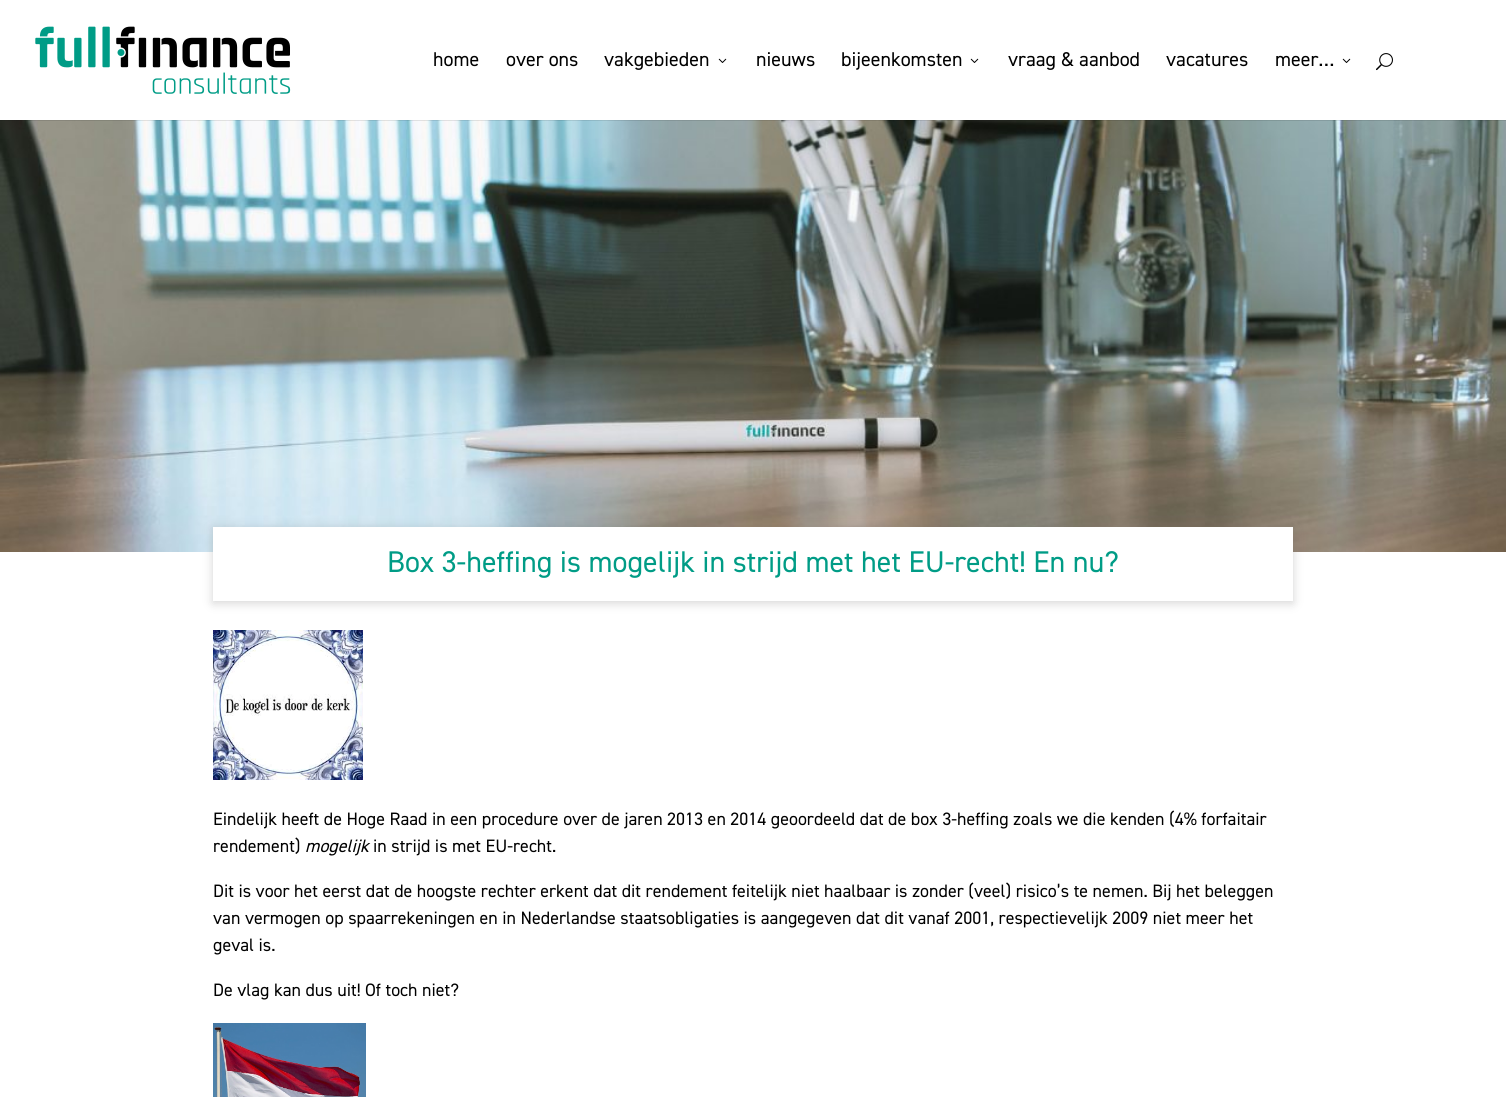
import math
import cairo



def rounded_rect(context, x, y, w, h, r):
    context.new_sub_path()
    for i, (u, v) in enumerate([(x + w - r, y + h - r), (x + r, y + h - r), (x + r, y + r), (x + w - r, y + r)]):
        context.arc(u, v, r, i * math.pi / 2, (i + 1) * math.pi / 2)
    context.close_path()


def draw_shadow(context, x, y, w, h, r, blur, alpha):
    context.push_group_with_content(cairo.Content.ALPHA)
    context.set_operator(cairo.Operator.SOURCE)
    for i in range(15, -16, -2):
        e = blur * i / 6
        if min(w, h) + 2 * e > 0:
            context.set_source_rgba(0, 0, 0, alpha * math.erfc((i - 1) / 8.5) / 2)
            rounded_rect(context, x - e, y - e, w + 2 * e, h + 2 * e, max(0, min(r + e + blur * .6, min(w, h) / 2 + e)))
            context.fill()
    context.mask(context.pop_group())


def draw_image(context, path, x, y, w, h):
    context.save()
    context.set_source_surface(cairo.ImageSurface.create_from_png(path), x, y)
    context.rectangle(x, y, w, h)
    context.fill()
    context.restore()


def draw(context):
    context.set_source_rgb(1, 1, 1)
    context.paint()
    draw_image(context, "images/4.png", 0, 120, 1506, 432)
    context.set_source_rgba(0, 0, 0, 0.1)
    context.rectangle(0, 120, 1506, 1)
    context.fill()
    draw_image(context, "images/1.png", 35, 26, 256, 68)
    draw_image(context, "images/2.png", 718, 58, 9, 5)
    draw_image(context, "images/2.png", 970, 58, 9, 5)
    draw_image(context, "images/2.png", 1342, 58, 9, 5)
    draw_image(context, "images/3.png", 1376, 53, 17, 18)
    context.set_source_rgb(112 / 255, 111 / 255, 111 / 255)
    draw_shadow(context, 213, 529, 1080, 74, 0, 5, 0.3)
    context.set_source_rgb(1, 1, 1)
    context.rectangle(213, 527, 1080, 74)
    context.fill()
    draw_image(context, "images/5.png", 213, 630, 150, 150)
    draw_image(context, "images/6.png", 213, 1023, 153, 74)
    context.select_font_face("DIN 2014")
    context.set_font_size(20)
    context.set_source_rgb(0, 0, 0)
    context.move_to(433, 66)
    context.show_text("home")
    context.move_to(506, 66)
    context.show_text("over ons")
    context.move_to(604, 66)
    context.show_text("vakgebieden")
    context.move_to(756, 66)
    context.show_text("nieuws")
    context.move_to(841, 66)
    context.show_text("bijeenkomsten")
    context.move_to(1008, 66)
    context.show_text("vraag & aanbod")
    context.move_to(1166, 66)
    context.show_text("vacatures")
    context.move_to(1275, 66)
    context.show_text("meer…")
    context.set_font_size(30)
    context.set_source_rgb(0, 156 / 255, 134 / 255)
    context.move_to(387, 572)
    context.show_text("Box 3-heffing is mogelijk in strijd met het EU-recht! En nu?")
    context.set_font_size(18)
    context.set_source_rgb(0, 0, 0)
    context.move_to(213, 825)
    context.show_text("Eindelijk heeft de Hoge Raad in een procedure over de jaren 2013 en 2014 geoordeeld dat de box 3-heffing zoals we die kenden (4% forfaitair")
    context.move_to(213, 852)
    context.show_text("rendement)")
    context.select_font_face("DIN 2014", cairo.FontSlant.ITALIC)
    context.move_to(305, 852)
    context.show_text("mogelijk")
    context.select_font_face("DIN 2014")
    context.move_to(373, 852)
    context.show_text("in strijd is met EU-recht.")
    context.move_to(213, 897)
    context.show_text("Dit is voor het eerst dat de hoogste rechter erkent dat dit rendement feitelijk niet haalbaar is zonder (veel) risico’s te nemen. Bij het beleggen")
    context.move_to(213, 924)
    context.show_text("van vermogen op spaarrekeningen en in Nederlandse staatsobligaties is aangegeven dat dit vanaf 2001, respectievelijk 2009 niet meer het")
    context.move_to(213, 951)
    context.show_text("geval is.")
    context.move_to(213, 996)
    context.show_text("De vlag kan dus uit! Of toch niet?")


surface = cairo.ImageSurface(cairo.Format.RGB24, 1506, 1097)
context = cairo.Context(surface)
options = cairo.FontOptions()
options.set_hint_metrics(cairo.HintMetrics.OFF)
options.set_hint_style(cairo.HintStyle.NONE)
context.set_font_options(options)
context.set_miter_limit(4)
draw(context)
surface.write_to_png("out.png")
